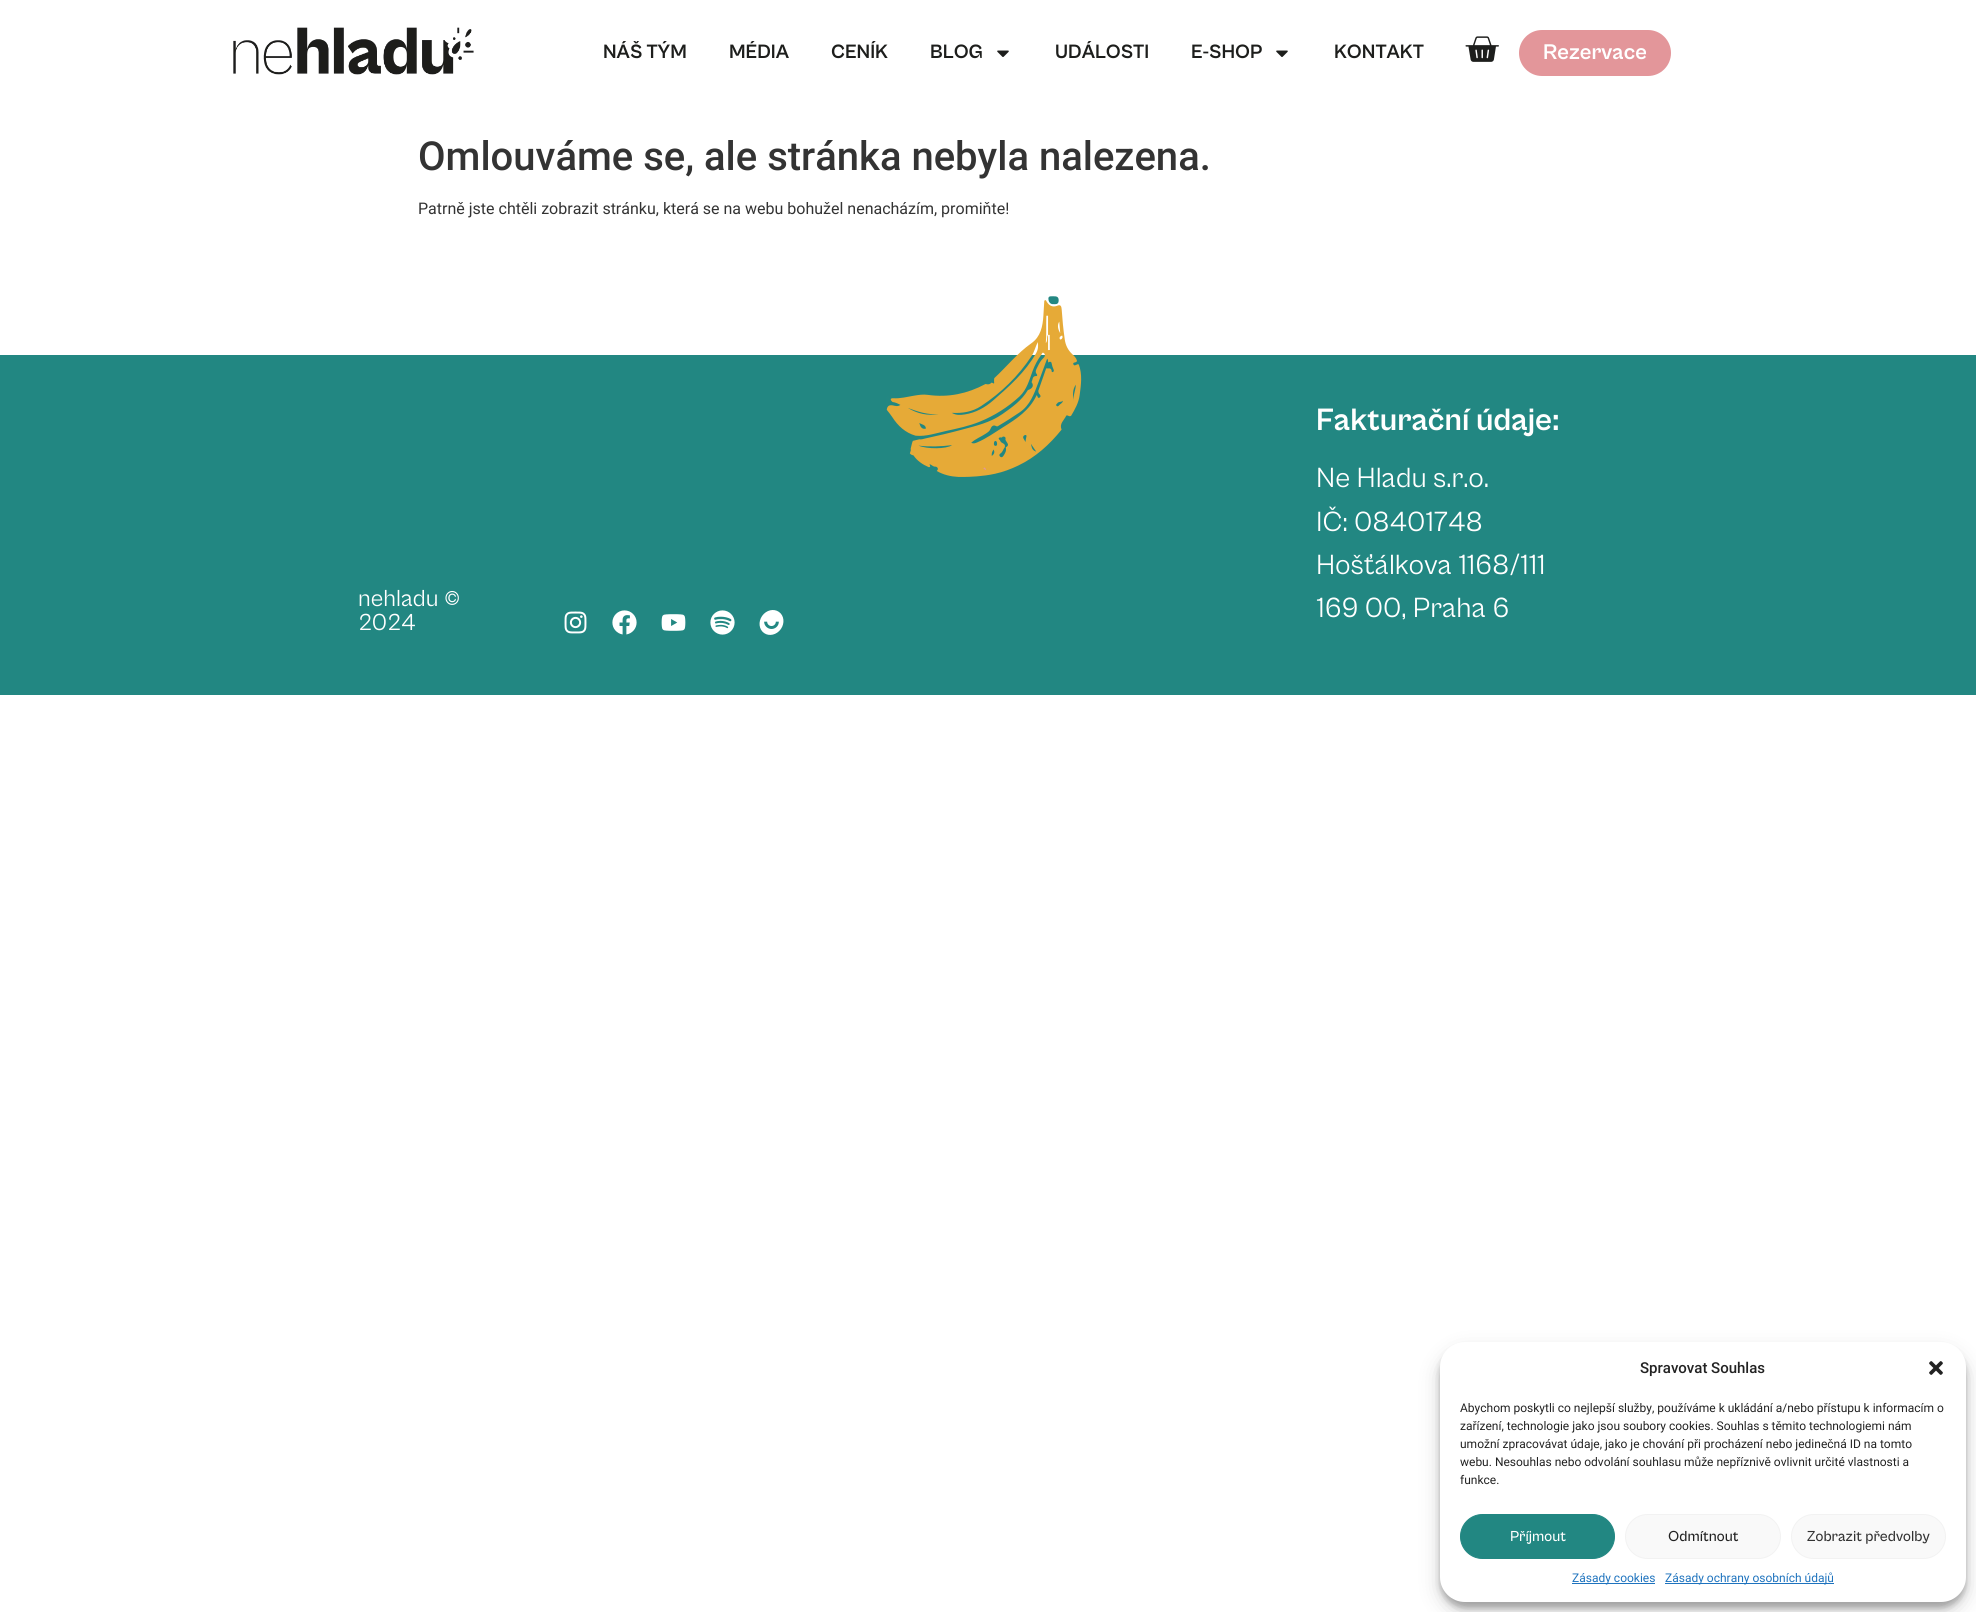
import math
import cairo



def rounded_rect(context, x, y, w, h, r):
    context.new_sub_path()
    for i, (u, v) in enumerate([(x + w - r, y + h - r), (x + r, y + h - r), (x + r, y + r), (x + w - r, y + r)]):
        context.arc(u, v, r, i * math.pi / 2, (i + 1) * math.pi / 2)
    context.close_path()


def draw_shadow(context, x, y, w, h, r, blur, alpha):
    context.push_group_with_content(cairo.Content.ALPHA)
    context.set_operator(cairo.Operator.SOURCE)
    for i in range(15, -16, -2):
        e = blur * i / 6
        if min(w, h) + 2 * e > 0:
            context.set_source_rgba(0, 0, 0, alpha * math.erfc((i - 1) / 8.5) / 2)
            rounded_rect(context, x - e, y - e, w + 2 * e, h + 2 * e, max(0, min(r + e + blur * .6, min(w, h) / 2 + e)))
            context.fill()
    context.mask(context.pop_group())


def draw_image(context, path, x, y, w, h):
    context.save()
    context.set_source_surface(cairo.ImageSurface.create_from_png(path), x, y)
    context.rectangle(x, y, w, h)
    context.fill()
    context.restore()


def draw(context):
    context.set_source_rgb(1, 1, 1)
    context.paint()
    draw_image(context, "images/1.png", 233, 27, 241, 48)
    draw_image(context, "images/2.png", 997, 50, 12, 7)
    draw_image(context, "images/2.png", 1276, 50, 12, 7)
    draw_image(context, "images/3.png", 1465, 36, 34, 26)
    context.set_source_rgb(227 / 255, 150 / 255, 154 / 255)
    rounded_rect(context, 1519, 30, 152, 46, 23)
    context.fill()
    context.set_source_rgb(34 / 255, 135 / 255, 130 / 255)
    context.rectangle(0, 355, 1976, 340)
    context.fill()
    draw_image(context, "images/4.png", 886, 296, 196, 181)
    draw_image(context, "images/5.png", 564, 611, 23, 23)
    draw_image(context, "images/6.png", 612, 610, 25, 25)
    draw_image(context, "images/7.png", 661, 614, 25, 17)
    draw_image(context, "images/8.png", 710, 610, 25, 25)
    draw_image(context, "images/9.png", 759, 610, 25, 25)
    context.set_source_rgb(0, 0, 0)
    draw_shadow(context, 1440, 1348, 526, 260, 25, 3, 0.23)
    draw_shadow(context, 1440, 1352, 526, 260, 25, 10, 0.19)
    context.set_source_rgb(1, 1, 1)
    rounded_rect(context, 1440, 1342, 526, 260, 25)
    context.fill()
    draw_image(context, "images/10.png", 1929, 1361, 14, 14)
    context.set_source_rgb(34 / 255, 135 / 255, 130 / 255)
    rounded_rect(context, 1460.5, 1514.5, 154, 44, 22)
    context.fill_preserve()
    context.set_line_width(1)
    context.stroke()
    context.set_source_rgb(249 / 255, 249 / 255, 249 / 255)
    rounded_rect(context, 1625.5, 1514.5, 155, 44, 22)
    context.fill_preserve()
    context.set_source_rgb(242 / 255, 242 / 255, 242 / 255)
    context.stroke()
    context.set_source_rgb(249 / 255, 249 / 255, 249 / 255)
    rounded_rect(context, 1791.5, 1514.5, 154, 44, 22)
    context.fill_preserve()
    context.set_source_rgb(242 / 255, 242 / 255, 242 / 255)
    context.stroke()
    context.set_source_rgb(30 / 255, 115 / 255, 190 / 255)
    context.rectangle(1572, 1583, 83, 1)
    context.fill()
    context.rectangle(1665, 1583, 169, 1)
    context.fill()
    context.select_font_face("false", cairo.FontSlant.NORMAL, cairo.FontWeight.BOLD)
    context.set_font_size(20)
    context.set_source_rgb(29 / 255, 30 / 255, 28 / 255)
    context.move_to(603, 58)
    context.show_text("NÁŠ TÝM")
    context.move_to(729, 58)
    context.show_text("MÉDIA")
    context.move_to(831, 58)
    context.show_text("CENÍK")
    context.move_to(930, 58)
    context.show_text("BLOG")
    context.move_to(1055, 58)
    context.show_text("UDÁLOSTI")
    context.move_to(1191, 58)
    context.show_text("E-SHOP")
    context.move_to(1334, 58)
    context.show_text("KONTAKT")
    context.set_font_size(22)
    context.set_source_rgb(1, 1, 1)
    context.move_to(1543, 59)
    context.show_text("Rezervace")
    context.select_font_face("Roboto Medium")
    context.set_font_size(40)
    context.set_source_rgb(51 / 255, 51 / 255, 51 / 255)
    context.move_to(418, 170)
    context.show_text("Omlouváme se, ale stránka nebyla nalezena.")
    context.select_font_face("Roboto")
    context.set_font_size(16)
    context.move_to(418, 214)
    context.show_text("Patrně jste chtěli zobrazit stránku, která se na webu bohužel nenacházím, promiňte!")
    context.select_font_face("false")
    context.set_font_size(24)
    context.set_source_rgb(1, 1, 1)
    context.move_to(358, 606)
    context.show_text("nehladu ©")
    context.move_to(358, 630)
    context.show_text("2024")
    context.select_font_face("false", cairo.FontSlant.NORMAL, cairo.FontWeight.BOLD)
    context.set_font_size(32)
    context.move_to(1316, 430)
    context.show_text("Fakturační údaje:")
    context.select_font_face("false")
    context.set_font_size(28.75)
    context.move_to(1316, 487)
    context.show_text("Ne Hladu s.r.o.")
    context.move_to(1316, 531)
    context.show_text("IČ: 08401748")
    context.move_to(1316, 574)
    context.show_text("Hošťálkova 1168/111")
    context.move_to(1316, 617)
    context.show_text("169 00, Praha 6")
    context.select_font_face("Roboto Medium")
    context.set_font_size(15)
    context.set_source_rgb(34 / 255, 34 / 255, 34 / 255)
    context.move_to(1640, 1373)
    context.show_text("Spravovat Souhlas")
    context.select_font_face("Roboto")
    context.set_font_size(12)
    context.move_to(1460, 1412)
    context.show_text("Abychom poskytli co nejlepší služby, používáme k ukládání a/nebo přístupu k informacím o")
    context.move_to(1460, 1430)
    context.show_text("zařízení, technologie jako jsou soubory cookies. Souhlas s těmito technologiemi nám")
    context.move_to(1460, 1448)
    context.show_text("umožní zpracovávat údaje, jako je chování při procházení nebo jedinečná ID na tomto")
    context.move_to(1460, 1466)
    context.show_text("webu. Nesouhlas nebo odvolání souhlasu může nepříznivě ovlivnit určité vlastnosti a")
    context.move_to(1460, 1484)
    context.show_text("funkce.")
    context.select_font_face("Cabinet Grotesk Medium")
    context.set_font_size(15)
    context.set_source_rgb(1, 1, 1)
    context.move_to(1510, 1541)
    context.show_text("Příjmout")
    context.set_source_rgb(34 / 255, 34 / 255, 34 / 255)
    context.move_to(1668, 1541)
    context.show_text("Odmítnout")
    context.set_source_rgb(51 / 255, 51 / 255, 51 / 255)
    context.move_to(1807, 1541)
    context.show_text("Zobrazit předvolby")
    context.select_font_face("Roboto")
    context.set_font_size(12)
    context.set_source_rgb(30 / 255, 115 / 255, 190 / 255)
    context.move_to(1572, 1582)
    context.show_text("Zásady cookies")
    context.move_to(1665, 1582)
    context.show_text("Zásady ochrany osobních údajů")


surface = cairo.ImageSurface(cairo.Format.RGB24, 1976, 1612)
context = cairo.Context(surface)
options = cairo.FontOptions()
options.set_hint_metrics(cairo.HintMetrics.OFF)
options.set_hint_style(cairo.HintStyle.NONE)
context.set_font_options(options)
context.set_miter_limit(4)
draw(context)
surface.write_to_png("out.png")
